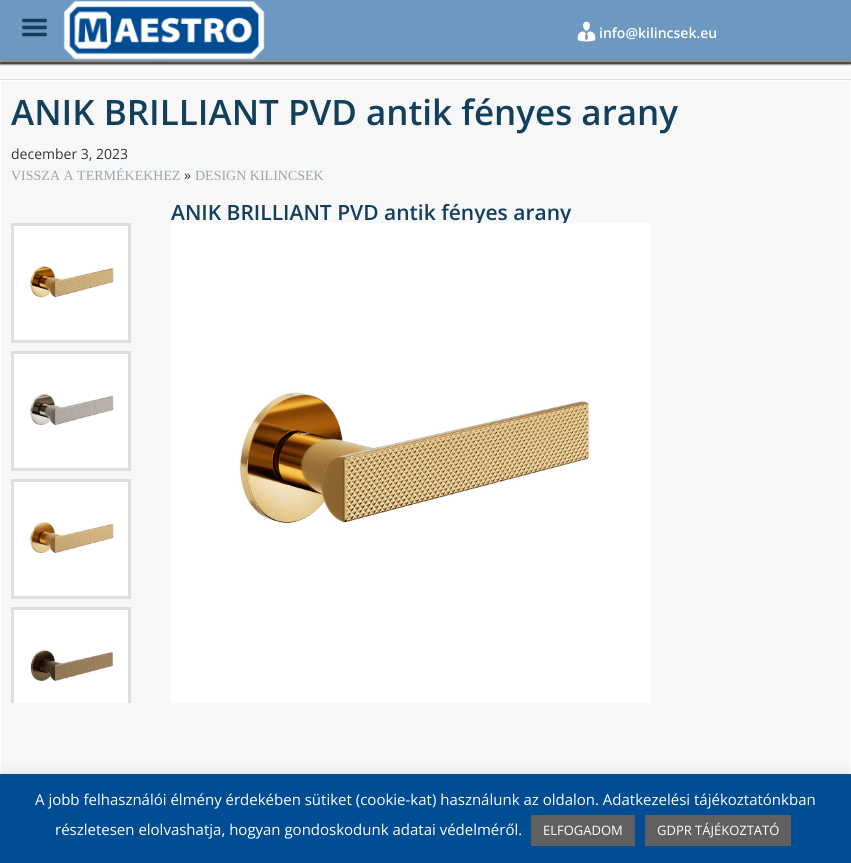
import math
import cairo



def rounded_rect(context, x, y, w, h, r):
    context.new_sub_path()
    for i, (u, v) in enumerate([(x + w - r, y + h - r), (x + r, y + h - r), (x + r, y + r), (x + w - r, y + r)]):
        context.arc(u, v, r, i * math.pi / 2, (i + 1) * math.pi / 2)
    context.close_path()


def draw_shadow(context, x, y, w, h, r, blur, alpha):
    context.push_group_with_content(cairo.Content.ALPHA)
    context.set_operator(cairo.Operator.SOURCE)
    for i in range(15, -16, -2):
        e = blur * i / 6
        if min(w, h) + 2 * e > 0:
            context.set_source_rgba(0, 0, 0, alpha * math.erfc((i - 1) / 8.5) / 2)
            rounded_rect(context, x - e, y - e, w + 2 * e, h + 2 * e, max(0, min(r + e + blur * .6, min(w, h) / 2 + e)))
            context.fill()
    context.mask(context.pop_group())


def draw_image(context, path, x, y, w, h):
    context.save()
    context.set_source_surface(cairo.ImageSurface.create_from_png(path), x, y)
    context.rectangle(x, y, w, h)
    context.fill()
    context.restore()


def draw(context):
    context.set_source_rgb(250 / 255, 250 / 255, 250 / 255)
    context.paint()
    context.set_source_rgb(109 / 255, 152 / 255, 191 / 255)
    context.rectangle(0, 0, 851, 60)
    context.fill()
    draw_image(context, "images/1.png", 22, 18, 25, 19)
    context.set_source_rgb(0, 0, 0)
    draw_shadow(context, 0, 62, 851, 2, 0, 1, 1)
    context.set_source_rgb(144 / 255, 144 / 255, 144 / 255)
    context.rectangle(0, 60, 851, 2)
    context.fill()
    draw_image(context, "images/2.png", 63, 1, 202, 59)
    draw_image(context, "images/3.png", 577, 21, 19, 21)
    context.set_source_rgb(247 / 255, 247 / 255, 247 / 255)
    context.rectangle(1, 81, 849, 693)
    context.fill()
    context.rectangle(0.5, 80.5, 850, 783)
    context.set_source_rgb(1, 1, 1)
    context.set_line_width(1)
    context.stroke()
    context.rectangle(-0.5, 79.5, 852, 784)
    context.set_source_rgb(222 / 255, 222 / 255, 222 / 255)
    context.stroke()
    context.rectangle(12.5, 224.5, 117, 117)
    context.set_source_rgb(220 / 255, 221 / 255, 222 / 255)
    context.set_line_width(3)
    context.stroke()
    draw_image(context, "images/4.png", 14, 226, 114, 114)
    context.rectangle(12.5, 352.5, 117, 117)
    context.stroke()
    draw_image(context, "images/5.png", 14, 354, 114, 114)
    context.rectangle(12.5, 480.5, 117, 117)
    context.stroke()
    draw_image(context, "images/6.png", 14, 482, 114, 114)
    context.save()
    context.rectangle(11, 223, 120, 480)
    context.clip()
    context.rectangle(12.5, 608.5, 117, 117)
    context.stroke()
    context.restore()
    draw_image(context, "images/7.png", 14, 610, 114, 93)
    context.set_source_rgb(172 / 255, 171 / 255, 171 / 255)
    draw_shadow(context, 0, 773, 851, 89, 0, 5, 0.3)
    context.set_source_rgb(0, 77 / 255, 147 / 255)
    context.rectangle(0, 774, 851, 89)
    context.fill()
    context.set_source_rgb(96 / 255, 96 / 255, 96 / 255)
    context.rectangle(531, 815, 104, 31)
    context.fill()
    context.rectangle(645, 815, 146, 31)
    context.fill()
    context.select_font_face("Open Sans SemiBold")
    context.set_font_size(14)
    context.set_source_rgb(1, 1, 1)
    context.move_to(599, 38)
    context.show_text("info@kilincsek.eu")
    context.set_font_size(35)
    context.set_source_rgb(18 / 255, 63 / 255, 92 / 255)
    context.move_to(11, 125)
    context.show_text("ANIK BRILLIANT PVD antik fényes arany")
    context.select_font_face("Open Sans")
    context.set_font_size(14)
    context.set_source_rgb(51 / 255, 51 / 255, 51 / 255)
    context.move_to(11, 159)
    context.show_text("december 3, 2023")
    context.select_font_face("Liberation Serif")
    context.set_source_rgb(156 / 255, 166 / 255, 171 / 255)
    context.move_to(11, 180)
    context.show_text("VISSZA A TERMÉKEKHEZ")
    context.select_font_face("Open Sans")
    context.set_source_rgb(51 / 255, 51 / 255, 51 / 255)
    context.move_to(184, 180)
    context.show_text("»")
    context.select_font_face("Liberation Serif")
    context.set_source_rgb(156 / 255, 166 / 255, 171 / 255)
    context.move_to(195, 180)
    context.show_text("DESIGN KILINCSEK")
    context.select_font_face("Open Sans SemiBold")
    context.set_font_size(21)
    context.set_source_rgb(18 / 255, 63 / 255, 92 / 255)
    context.move_to(171, 220)
    context.show_text("ANIK BRILLIANT PVD antik fényes arany")
    draw_image(context, "images/8.png", 171, 223, 480, 480)
    context.select_font_face("Open Sans")
    context.set_font_size(15)
    context.set_source_rgb(1, 1, 1)
    context.move_to(35, 805)
    context.show_text("A jobb felhasználói élmény érdekében sütiket (cookie-kat) használunk az oldalon. Adatkezelési tájékoztatónkban")
    context.move_to(55, 835)
    context.show_text("részletesen elolvashatja, hogyan gondoskodunk adatai védelméről.")
    context.set_font_size(13)
    context.move_to(543, 835)
    context.show_text("ELFOGADOM")
    context.move_to(657, 835)
    context.show_text("GDPR TÁJÉKOZTATÓ")


surface = cairo.ImageSurface(cairo.Format.RGB24, 851, 863)
context = cairo.Context(surface)
options = cairo.FontOptions()
options.set_hint_metrics(cairo.HintMetrics.OFF)
options.set_hint_style(cairo.HintStyle.NONE)
context.set_font_options(options)
context.set_miter_limit(4)
draw(context)
surface.write_to_png("out.png")
